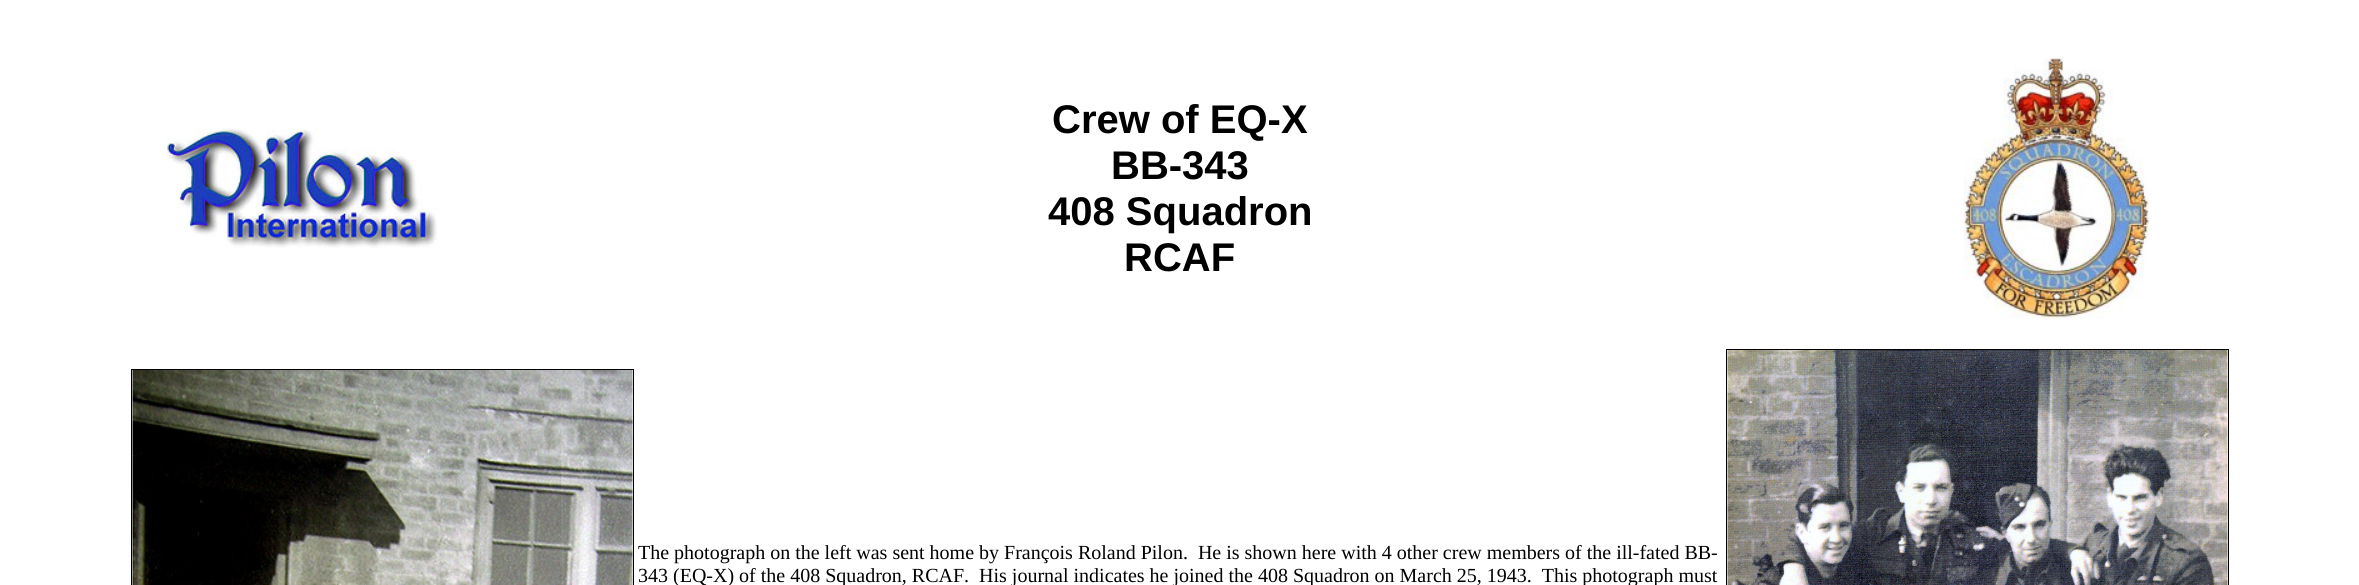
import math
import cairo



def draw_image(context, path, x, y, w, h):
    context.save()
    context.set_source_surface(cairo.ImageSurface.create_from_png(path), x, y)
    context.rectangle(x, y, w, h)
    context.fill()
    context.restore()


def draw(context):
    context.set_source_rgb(1, 1, 1)
    context.paint()
    draw_image(context, "images/1.png", 166, 128, 271, 120)
    draw_image(context, "images/2.png", 1963, 58, 186, 261)
    context.rectangle(131.5, 369.5, 502, 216)
    context.set_source_rgb(0, 0, 0)
    context.set_line_width(1)
    context.stroke()
    draw_image(context, "images/3.png", 132, 370, 501, 215)
    context.rectangle(1726.5, 349.5, 502, 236)
    context.stroke()
    draw_image(context, "images/4.png", 1727, 350, 501, 235)
    context.select_font_face("Liberation Sans", cairo.FontSlant.NORMAL, cairo.FontWeight.BOLD)
    context.set_font_size(40)
    context.move_to(1052, 133)
    context.show_text("Crew of EQ-X")
    context.move_to(1111, 179)
    context.show_text("BB-343")
    context.move_to(1048, 225)
    context.show_text("408 Squadron")
    context.move_to(1124, 271)
    context.show_text("RCAF")
    context.select_font_face("Liberation Serif")
    context.set_font_size(20)
    context.move_to(638, 559)
    context.show_text("The photograph on the left was sent home by François Roland Pilon.  He is shown here with 4 other crew members of the ill-fated BB-")
    context.move_to(638, 582)
    context.show_text("343 (EQ-X) of the 408 Squadron, RCAF.  His journal indicates he joined the 408 Squadron on March 25, 1943.  This photograph must")


surface = cairo.ImageSurface(cairo.Format.RGB24, 2359, 585)
context = cairo.Context(surface)
options = cairo.FontOptions()
options.set_hint_metrics(cairo.HintMetrics.OFF)
options.set_hint_style(cairo.HintStyle.NONE)
context.set_font_options(options)
context.set_miter_limit(4)
draw(context)
surface.write_to_png("out.png")
